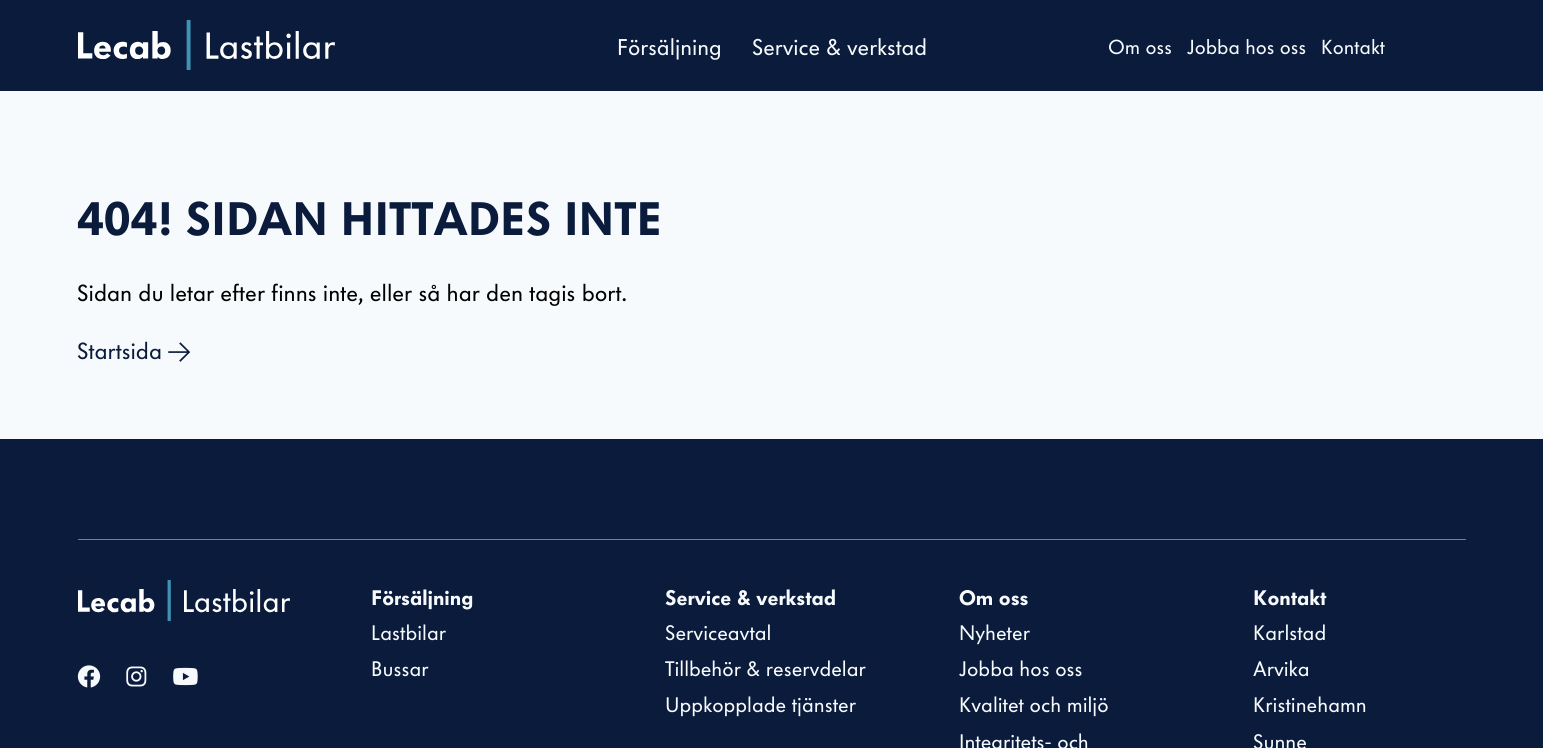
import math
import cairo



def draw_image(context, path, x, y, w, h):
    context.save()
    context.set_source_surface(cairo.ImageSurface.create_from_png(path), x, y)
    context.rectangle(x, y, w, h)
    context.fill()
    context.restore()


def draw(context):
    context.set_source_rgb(247 / 255, 250 / 255, 252 / 255)
    context.paint()
    context.set_source_rgb(10 / 255, 27 / 255, 60 / 255)
    context.rectangle(0, 0, 1543, 91)
    context.fill()
    draw_image(context, "images/1.png", 78, 20, 257, 50)
    context.rectangle(0, 439, 1543, 309)
    context.fill()
    context.set_source_rgb(63 / 255, 147 / 255, 181 / 255)
    context.rectangle(78, 539, 1388, 1)
    context.fill()
    draw_image(context, "images/2.png", 78, 580, 212, 41)
    draw_image(context, "images/3.png", 77, 665, 24, 23)
    draw_image(context, "images/4.png", 126, 666, 21, 21)
    draw_image(context, "images/5.png", 173, 667, 25, 19)
    context.select_font_face("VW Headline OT")
    context.set_font_size(22.5)
    context.set_source_rgb(247 / 255, 250 / 255, 252 / 255)
    context.move_to(617, 55)
    context.show_text("Försäljning")
    context.move_to(752, 55)
    context.show_text("Service & verkstad")
    context.set_font_size(20)
    context.move_to(1108, 54)
    context.show_text("Om oss")
    context.move_to(1187, 54)
    context.show_text("Jobba hos oss")
    context.move_to(1321, 54)
    context.show_text("Kontakt")
    context.select_font_face("VW Headline OT Black")
    context.set_font_size(46.25)
    context.set_source_rgb(10 / 255, 27 / 255, 60 / 255)
    context.move_to(77, 235)
    context.show_text("404! SIDAN HITTADES INTE")
    context.select_font_face("VW Headline OT")
    context.set_font_size(23)
    context.set_source_rgb(0, 0, 0)
    context.move_to(77, 301)
    context.show_text("Sidan du letar efter finns inte, eller så har den tagis bort.")
    context.set_source_rgb(10 / 255, 27 / 255, 60 / 255)
    context.move_to(77, 359)
    context.show_text("Startsida →")
    context.select_font_face("VW Headline OT Black")
    context.set_font_size(20.75)
    context.set_source_rgb(247 / 255, 250 / 255, 252 / 255)
    context.move_to(371, 605)
    context.show_text("Försäljning")
    context.select_font_face("VW Headline OT")
    context.move_to(371, 640)
    context.show_text("Lastbilar")
    context.move_to(371, 676)
    context.show_text("Bussar")
    context.select_font_face("VW Headline OT Black")
    context.move_to(665, 605)
    context.show_text("Service & verkstad")
    context.select_font_face("VW Headline OT")
    context.move_to(665, 640)
    context.show_text("Serviceavtal")
    context.move_to(665, 676)
    context.show_text("Tillbehör & reservdelar")
    context.move_to(665, 712)
    context.show_text("Uppkopplade tjänster")
    context.select_font_face("VW Headline OT Black")
    context.move_to(959, 605)
    context.show_text("Om oss")
    context.select_font_face("VW Headline OT")
    context.move_to(959, 640)
    context.show_text("Nyheter")
    context.move_to(959, 676)
    context.show_text("Jobba hos oss")
    context.move_to(959, 712)
    context.show_text("Kvalitet och miljö")
    context.move_to(959, 749)
    context.show_text("Integritets- och")
    context.select_font_face("VW Headline OT Black")
    context.move_to(1253, 605)
    context.show_text("Kontakt")
    context.select_font_face("VW Headline OT")
    context.move_to(1253, 640)
    context.show_text("Karlstad")
    context.move_to(1253, 676)
    context.show_text("Arvika")
    context.move_to(1253, 712)
    context.show_text("Kristinehamn")
    context.move_to(1253, 749)
    context.show_text("Sunne")


surface = cairo.ImageSurface(cairo.Format.RGB24, 1543, 748)
context = cairo.Context(surface)
options = cairo.FontOptions()
options.set_hint_metrics(cairo.HintMetrics.OFF)
options.set_hint_style(cairo.HintStyle.NONE)
context.set_font_options(options)
context.set_miter_limit(4)
draw(context)
surface.write_to_png("out.png")
